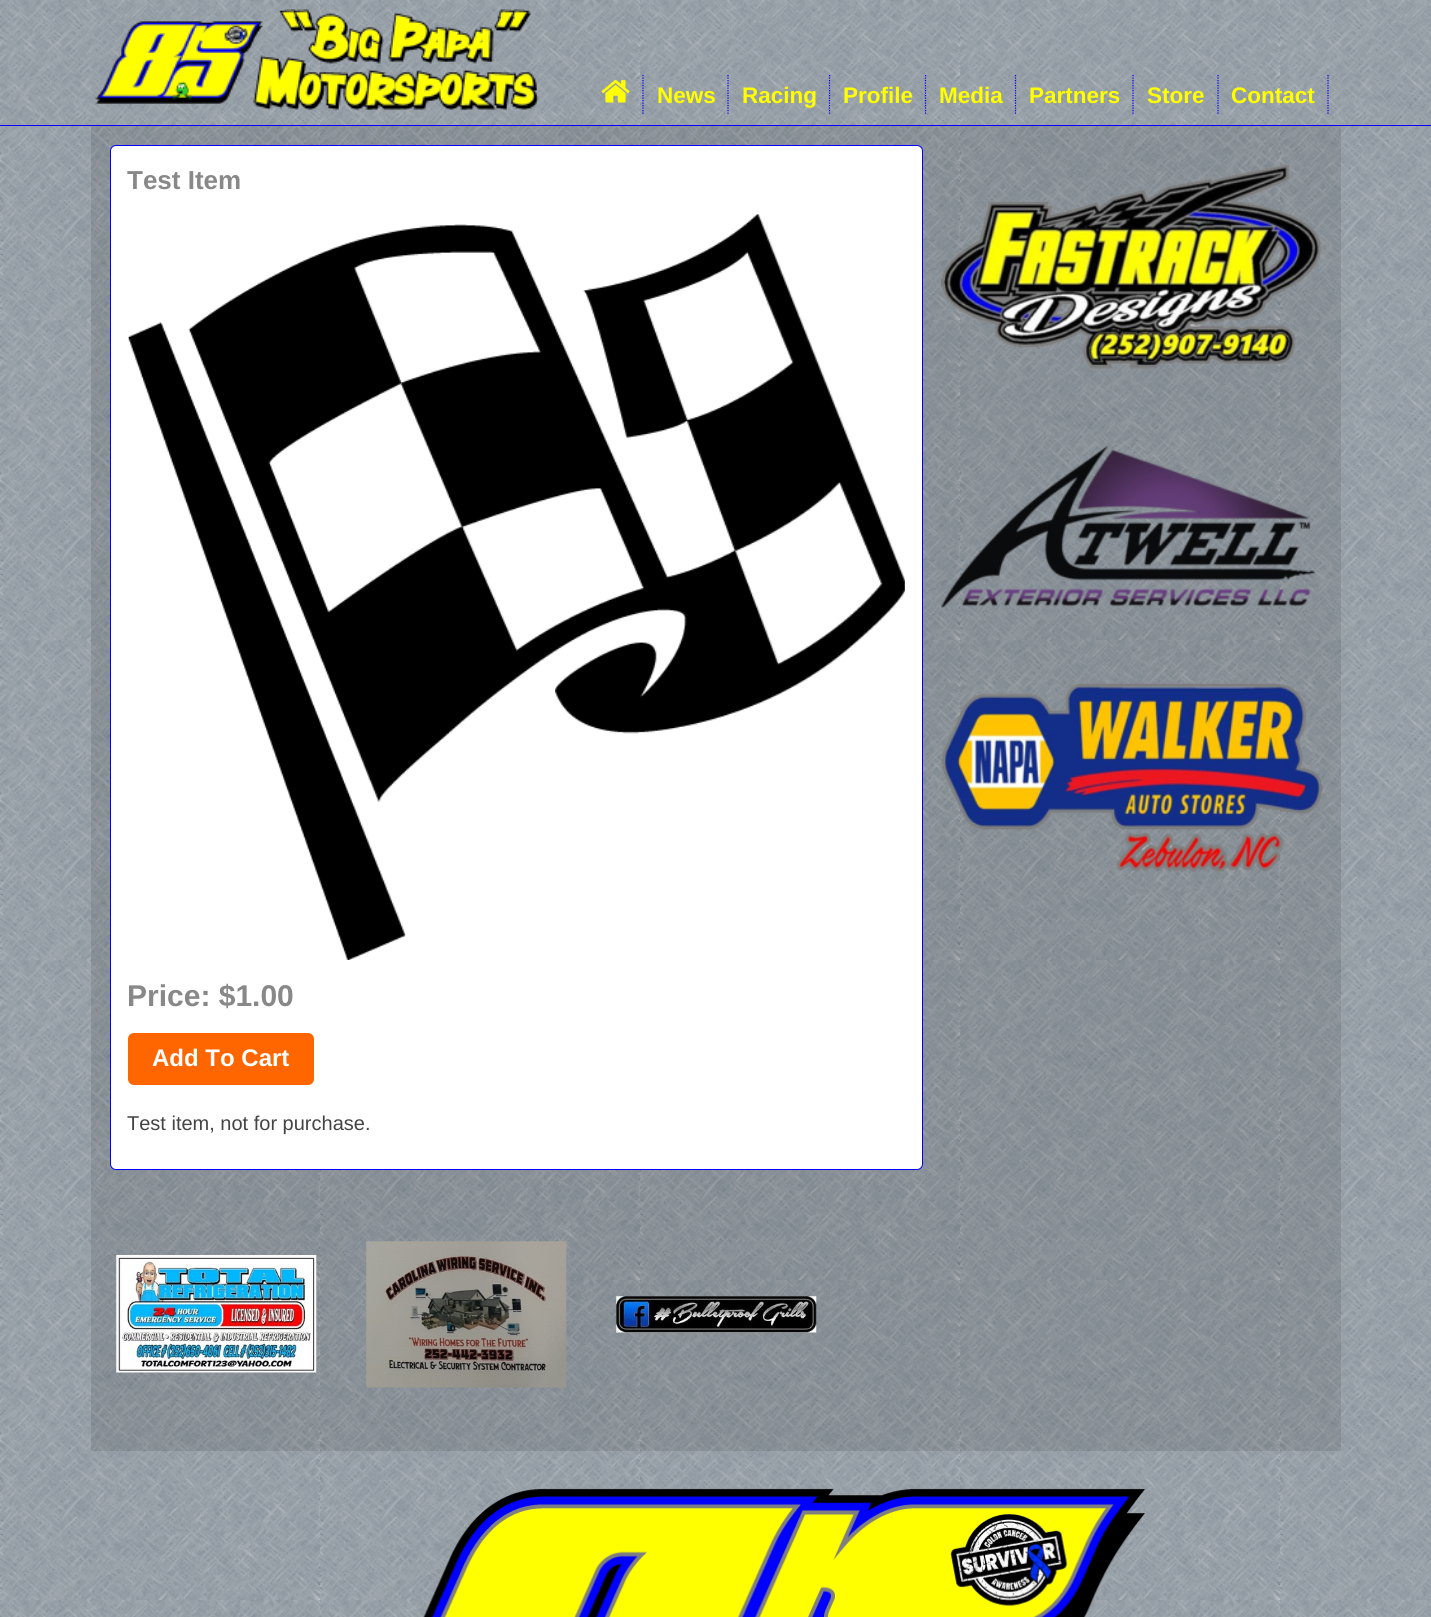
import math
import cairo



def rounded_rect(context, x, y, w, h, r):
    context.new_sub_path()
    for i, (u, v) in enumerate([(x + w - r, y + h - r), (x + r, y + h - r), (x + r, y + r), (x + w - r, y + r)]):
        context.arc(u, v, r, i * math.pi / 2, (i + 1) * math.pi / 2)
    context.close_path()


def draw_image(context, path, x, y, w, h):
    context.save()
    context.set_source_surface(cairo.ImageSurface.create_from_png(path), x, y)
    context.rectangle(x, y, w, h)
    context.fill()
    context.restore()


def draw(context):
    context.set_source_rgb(101 / 255, 116 / 255, 130 / 255)
    context.paint()
    draw_image(context, "images/1.png", 0, 0, 1431, 1617)
    context.set_source_rgb(0, 0, 1)
    context.rectangle(0, 125, 1431, 1)
    context.fill()
    draw_image(context, "images/2.png", 95, 9, 444, 101)
    context.new_path()
    context.move_to(643, 75)
    context.line_to(643, 115)
    context.set_line_width(1.2)
    context.set_dash([1.25, 1.25])
    context.stroke()
    draw_image(context, "images/3.png", 601, 80, 29, 23)
    context.new_path()
    context.move_to(728, 75)
    context.line_to(728, 115)
    context.stroke()
    context.new_path()
    context.move_to(829.5, 75)
    context.line_to(829.5, 115)
    context.stroke()
    context.new_path()
    context.move_to(925.5, 75)
    context.line_to(925.5, 115)
    context.stroke()
    context.new_path()
    context.move_to(1015.5, 75)
    context.line_to(1015.5, 115)
    context.stroke()
    context.new_path()
    context.move_to(1133, 75)
    context.line_to(1133, 115)
    context.stroke()
    context.new_path()
    context.move_to(1218, 75)
    context.line_to(1218, 115)
    context.stroke()
    context.new_path()
    context.move_to(1328, 75)
    context.line_to(1328, 115)
    context.stroke()
    context.set_source_rgba(0, 0, 0, 0.1)
    context.rectangle(91, 126, 1250, 1325)
    context.fill()
    context.set_source_rgb(1, 1, 1)
    rounded_rect(context, 110.5, 145.5, 812, 1024, 5.5)
    context.fill_preserve()
    context.set_source_rgb(0, 0, 1)
    context.set_line_width(1)
    context.set_dash([])
    context.stroke()
    draw_image(context, "images/4.png", 128, 214, 777, 746)
    context.set_source_rgb(1, 102 / 255, 0)
    rounded_rect(context, 128, 1033, 186, 52, 6)
    context.fill()
    draw_image(context, "images/5.png", 941, 163, 381, 206)
    draw_image(context, "images/6.png", 941, 445, 375, 163)
    draw_image(context, "images/7.png", 941, 683, 382, 190)
    draw_image(context, "images/8.png", 116, 1255, 201, 118)
    draw_image(context, "images/9.png", 366, 1241, 201, 147)
    draw_image(context, "images/10.png", 616, 1296, 201, 37)
    draw_image(context, "images/11.png", 423, 1488, 722, 129)
    context.select_font_face("Liberation Sans", cairo.FontSlant.NORMAL, cairo.FontWeight.BOLD)
    context.set_font_size(22.5)
    context.set_source_rgb(1, 1, 0)
    context.move_to(657, 103)
    context.show_text("News")
    context.move_to(742, 103)
    context.show_text("Racing")
    context.move_to(843, 103)
    context.show_text("Profile")
    context.move_to(939, 103)
    context.show_text("Media")
    context.move_to(1029, 103)
    context.show_text("Partners")
    context.move_to(1147, 103)
    context.show_text("Store")
    context.move_to(1231, 103)
    context.show_text("Contact")
    context.set_font_size(26)
    context.set_source_rgb(136 / 255, 136 / 255, 136 / 255)
    context.move_to(127, 189)
    context.show_text("Test Item")
    context.set_font_size(30)
    context.move_to(127, 1006)
    context.show_text("Price: $1.00")
    context.set_font_size(24)
    context.set_source_rgb(1, 1, 1)
    context.move_to(152, 1066)
    context.show_text("Add To Cart")
    context.select_font_face("Liberation Sans")
    context.set_font_size(20)
    context.set_source_rgb(68 / 255, 68 / 255, 68 / 255)
    context.move_to(127, 1130)
    context.show_text("Test item, not for purchase.")


surface = cairo.ImageSurface(cairo.Format.RGB24, 1431, 1617)
context = cairo.Context(surface)
options = cairo.FontOptions()
options.set_hint_metrics(cairo.HintMetrics.OFF)
options.set_hint_style(cairo.HintStyle.NONE)
context.set_font_options(options)
context.set_miter_limit(4)
draw(context)
surface.write_to_png("out.png")
